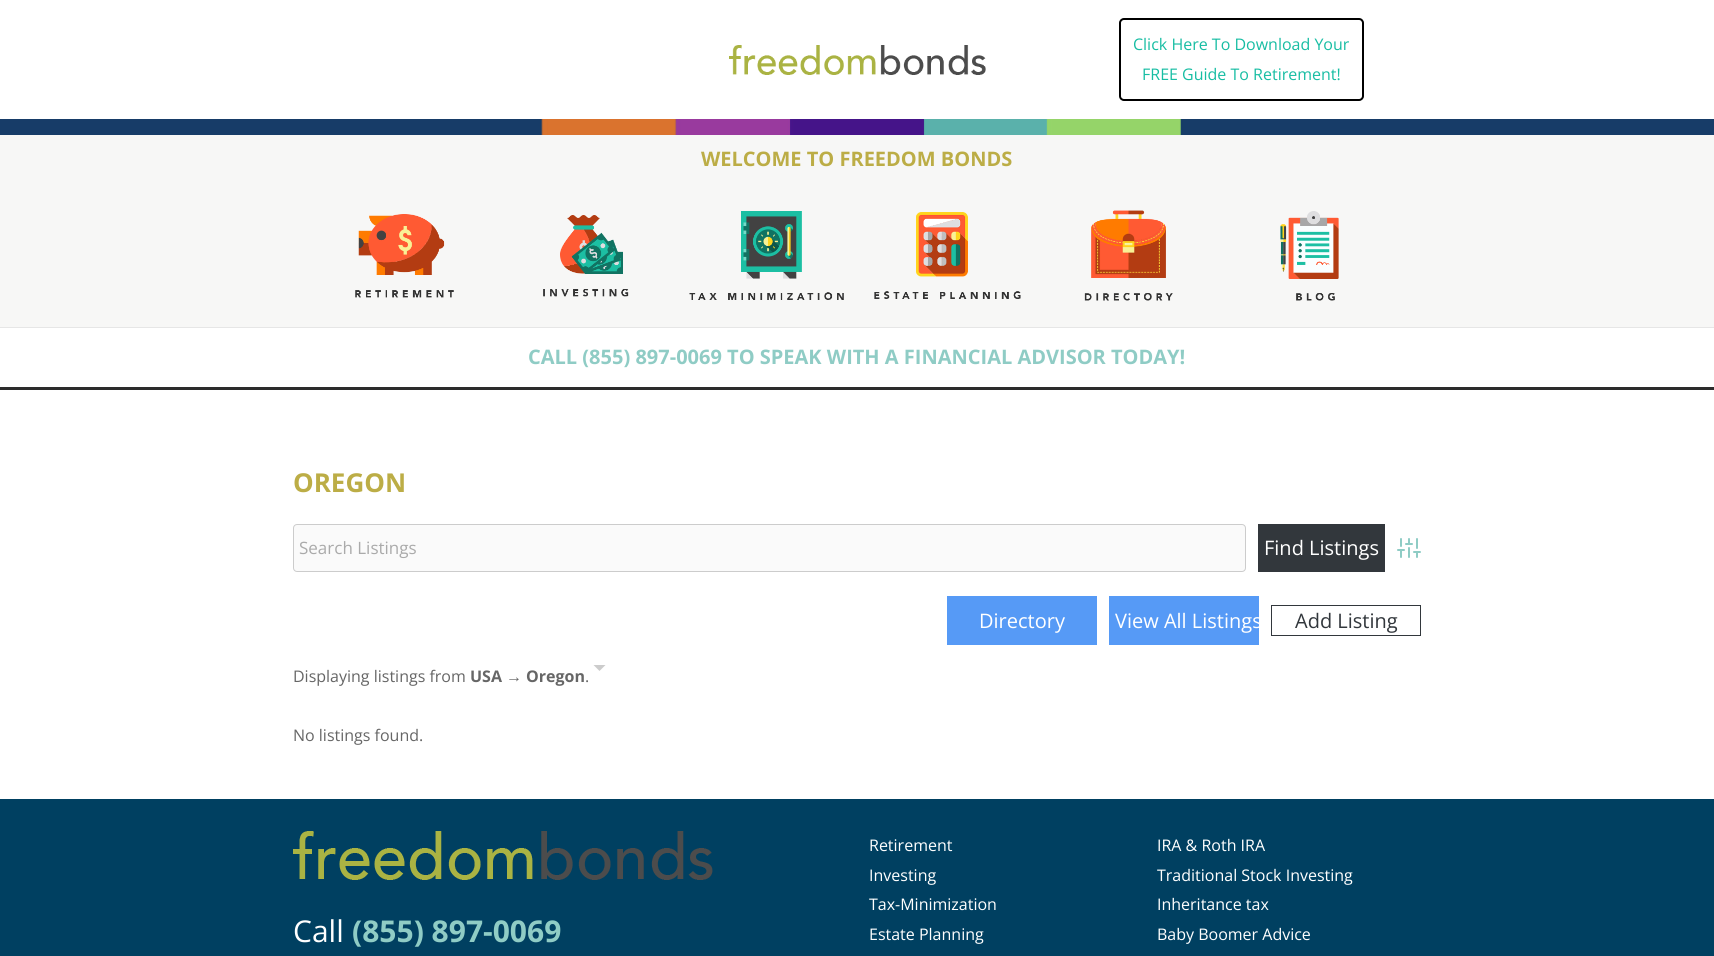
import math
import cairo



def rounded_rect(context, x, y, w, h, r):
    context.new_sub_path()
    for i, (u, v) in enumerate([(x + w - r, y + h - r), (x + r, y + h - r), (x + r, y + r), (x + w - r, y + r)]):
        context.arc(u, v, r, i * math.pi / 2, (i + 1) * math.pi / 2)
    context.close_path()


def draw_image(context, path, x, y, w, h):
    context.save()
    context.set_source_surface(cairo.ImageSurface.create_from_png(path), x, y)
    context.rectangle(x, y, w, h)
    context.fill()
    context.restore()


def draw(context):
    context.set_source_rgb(1, 1, 1)
    context.paint()
    draw_image(context, "images/1.png", 729, 45, 257, 30)
    rounded_rect(context, 1120, 19, 243, 81, 4)
    context.set_source_rgb(0, 0, 0)
    context.stroke()
    context.set_source_rgb(230 / 255, 230 / 255, 230 / 255)
    context.rectangle(0, 327, 1714, 1)
    context.fill()
    context.set_source_rgb(247 / 255, 247 / 255, 246 / 255)
    context.rectangle(0, 135, 1714, 192)
    context.fill()
    draw_image(context, "images/2.png", 0, 119, 1714, 16)
    draw_image(context, "images/3.png", 355, 214, 99, 84)
    draw_image(context, "images/4.png", 543, 215, 86, 82)
    draw_image(context, "images/5.png", 689, 211, 155, 89)
    draw_image(context, "images/6.png", 874, 212, 147, 87)
    draw_image(context, "images/7.png", 1084, 210, 89, 91)
    draw_image(context, "images/8.png", 1280, 211, 59, 90)
    context.set_source_rgb(44 / 255, 44 / 255, 44 / 255)
    context.rectangle(0, 387, 1714, 3)
    context.fill()
    context.set_source_rgb(250 / 255, 250 / 255, 250 / 255)
    rounded_rect(context, 293.5, 524.5, 952, 47, 3.5)
    context.fill_preserve()
    context.set_source_rgb(204 / 255, 204 / 255, 204 / 255)
    context.set_line_width(1)
    context.stroke()
    context.set_source_rgb(50 / 255, 55 / 255, 60 / 255)
    context.rectangle(1258, 524, 127, 48)
    context.fill()
    draw_image(context, "images/9.png", 1397, 538, 24, 20)
    context.set_source_rgb(86 / 255, 154 / 255, 246 / 255)
    context.rectangle(947, 596, 150, 49)
    context.fill()
    context.rectangle(1109, 596, 150, 49)
    context.fill()
    context.rectangle(1271.5, 605.5, 149, 30)
    context.set_source_rgb(50 / 255, 55 / 255, 60 / 255)
    context.stroke()
    context.set_source_rgb(204 / 255, 204 / 255, 204 / 255)
    context.new_path()
    context.move_to(593.5, 665)
    context.line_to(605.5, 665)
    context.line_to(599.5, 671)
    context.close_path()
    context.fill()
    context.set_source_rgb(0, 64 / 255, 97 / 255)
    context.rectangle(0, 799, 1714, 157)
    context.fill()
    draw_image(context, "images/10.png", 293, 831, 420, 49)
    context.select_font_face("Open Sans")
    context.set_font_size(16)
    context.set_source_rgb(23 / 255, 189 / 255, 163 / 255)
    context.move_to(1133, 50)
    context.show_text("Click Here To Download Your")
    context.move_to(1142, 80)
    context.show_text("FREE Guide To Retirement!")
    context.select_font_face("Open Sans", cairo.FontSlant.NORMAL, cairo.FontWeight.BOLD)
    context.set_font_size(20)
    context.set_source_rgb(188 / 255, 173 / 255, 70 / 255)
    context.move_to(701, 166)
    context.show_text("WELCOME TO FREEDOM BONDS")
    context.set_source_rgb(143 / 255, 204 / 255, 197 / 255)
    context.move_to(528, 364)
    context.show_text("CALL (855) 897-0069 TO SPEAK WITH A FINANCIAL ADVISOR TODAY!")
    context.set_font_size(26)
    context.set_source_rgb(188 / 255, 173 / 255, 70 / 255)
    context.move_to(293, 492)
    context.show_text("OREGON")
    context.select_font_face("Open Sans")
    context.set_font_size(17)
    context.set_source_rgb(170 / 255, 170 / 255, 170 / 255)
    context.move_to(299, 554)
    context.show_text("Search Listings")
    context.set_font_size(20)
    context.set_source_rgb(1, 1, 1)
    context.move_to(1264, 555)
    context.show_text("Find Listings")
    context.move_to(979, 628)
    context.show_text("Directory")
    context.move_to(1115, 628)
    context.show_text("View All Listings")
    context.set_source_rgb(50 / 255, 55 / 255, 60 / 255)
    context.move_to(1295, 628)
    context.show_text("Add Listing")
    context.set_font_size(16)
    context.set_source_rgb(102 / 255, 102 / 255, 102 / 255)
    context.move_to(293, 682)
    context.show_text("Displaying listings from")
    context.select_font_face("Open Sans", cairo.FontSlant.NORMAL, cairo.FontWeight.BOLD)
    context.move_to(470, 682)
    context.show_text("USA")
    context.select_font_face("Liberation Sans", cairo.FontSlant.NORMAL, cairo.FontWeight.BOLD)
    context.move_to(506, 682)
    context.show_text("→")
    context.select_font_face("Open Sans", cairo.FontSlant.NORMAL, cairo.FontWeight.BOLD)
    context.move_to(526, 682)
    context.show_text("Oregon")
    context.select_font_face("Open Sans")
    context.move_to(585, 682)
    context.show_text(".")
    context.move_to(293, 741)
    context.show_text("No listings found.")
    context.set_font_size(30)
    context.set_source_rgb(1, 1, 1)
    context.move_to(293, 942)
    context.show_text("Call")
    context.select_font_face("Open Sans", cairo.FontSlant.NORMAL, cairo.FontWeight.BOLD)
    context.set_source_rgb(143 / 255, 204 / 255, 197 / 255)
    context.move_to(352, 942)
    context.show_text("(855) 897-0069")
    context.select_font_face("Open Sans")
    context.set_font_size(16)
    context.set_source_rgb(1, 1, 1)
    context.move_to(869, 851)
    context.show_text("Retirement")
    context.move_to(869, 881)
    context.show_text("Investing")
    context.move_to(869, 910)
    context.show_text("Tax-Minimization")
    context.move_to(869, 940)
    context.show_text("Estate Planning")
    context.move_to(1157, 851)
    context.show_text("IRA & Roth IRA")
    context.move_to(1157, 881)
    context.show_text("Traditional Stock Investing")
    context.move_to(1157, 910)
    context.show_text("Inheritance tax")
    context.move_to(1157, 940)
    context.show_text("Baby Boomer Advice")


surface = cairo.ImageSurface(cairo.Format.RGB24, 1714, 956)
context = cairo.Context(surface)
options = cairo.FontOptions()
options.set_hint_metrics(cairo.HintMetrics.OFF)
options.set_hint_style(cairo.HintStyle.NONE)
context.set_font_options(options)
context.set_miter_limit(4)
draw(context)
surface.write_to_png("out.png")
